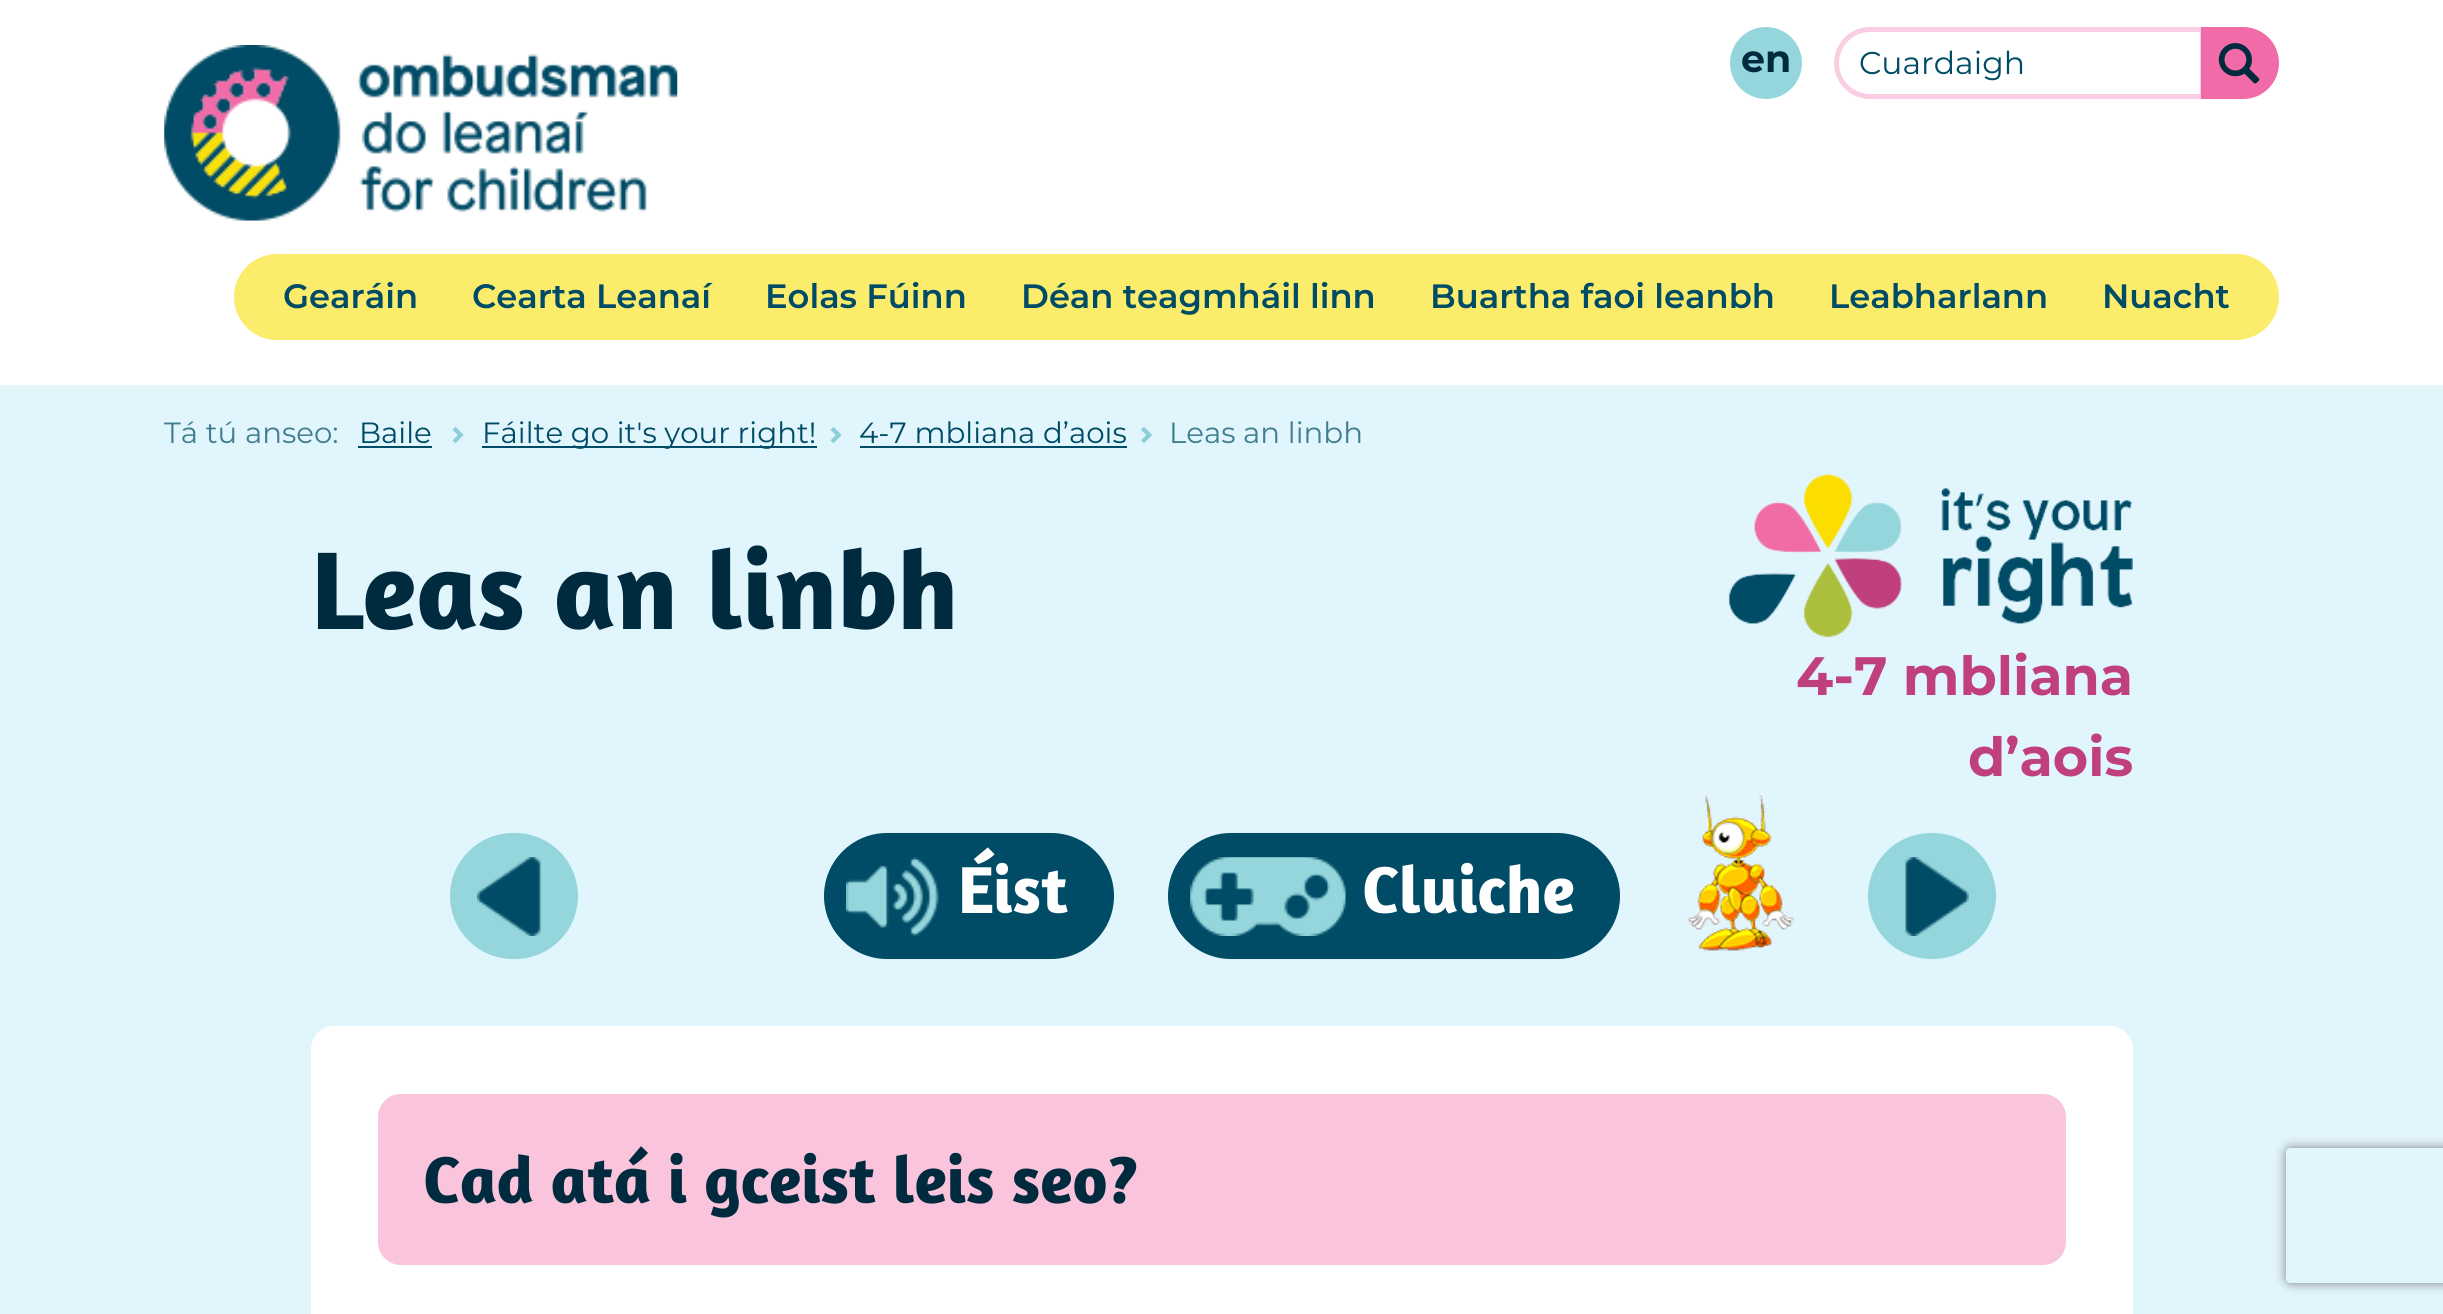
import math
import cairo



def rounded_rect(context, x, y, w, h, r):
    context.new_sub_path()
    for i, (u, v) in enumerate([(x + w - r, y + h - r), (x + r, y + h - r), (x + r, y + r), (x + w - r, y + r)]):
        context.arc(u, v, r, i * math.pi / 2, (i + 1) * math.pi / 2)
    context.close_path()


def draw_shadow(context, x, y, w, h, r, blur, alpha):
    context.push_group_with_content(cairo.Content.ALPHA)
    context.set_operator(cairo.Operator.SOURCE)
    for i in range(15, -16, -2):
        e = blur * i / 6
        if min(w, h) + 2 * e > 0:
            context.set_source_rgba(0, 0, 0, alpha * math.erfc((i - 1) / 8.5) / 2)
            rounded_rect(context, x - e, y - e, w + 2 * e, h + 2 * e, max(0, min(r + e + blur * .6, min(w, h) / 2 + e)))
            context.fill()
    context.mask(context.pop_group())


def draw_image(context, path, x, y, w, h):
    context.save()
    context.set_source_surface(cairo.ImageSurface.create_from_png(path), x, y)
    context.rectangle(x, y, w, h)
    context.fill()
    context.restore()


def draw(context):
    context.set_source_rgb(1, 1, 1)
    context.paint()
    context.set_source_rgb(228 / 255, 245 / 255, 247 / 255)
    context.rectangle(0, 385, 2443, 9)
    context.fill()
    draw_image(context, "images/1.png", 164, 45, 514, 176)
    context.set_source_rgb(148 / 255, 214 / 255, 220 / 255)
    context.arc(1766, 63, 36, 0, 2 * math.pi)
    context.fill()
    context.new_path()
    context.move_to(1870, 29.5)
    context.line_to(2202.5, 29.5)
    context.line_to(2202.5, 96.5)
    context.line_to(1870, 96.5)
    context.curve_to(1851.5, 96.5, 1836.5, 81.5, 1836.5, 63)
    context.curve_to(1836.5, 44.5, 1851.5, 29.5, 1870, 29.5)
    context.close_path()
    context.set_source_rgb(250 / 255, 206 / 255, 226 / 255)
    context.set_line_width(5)
    context.stroke()
    context.set_source_rgb(240 / 255, 107 / 255, 167 / 255)
    context.new_path()
    context.move_to(2201, 27)
    context.line_to(2243, 27)
    context.curve_to(2263, 27, 2279, 43, 2279, 63)
    context.curve_to(2279, 83, 2263, 99, 2243, 99)
    context.line_to(2201, 99)
    context.close_path()
    context.fill()
    draw_image(context, "images/2.png", 2218, 43, 42, 41)
    context.set_source_rgb(251 / 255, 236 / 255, 107 / 255)
    rounded_rect(context, 234, 254, 2045, 86, 43)
    context.fill()
    context.set_source_rgb(225 / 255, 245 / 255, 252 / 255)
    context.rectangle(0, 394, 2443, 920)
    context.fill()
    context.set_source_rgb(0, 75 / 255, 101 / 255)
    context.rectangle(358, 446, 74, 2)
    context.fill()
    draw_image(context, "images/3.png", 452, 426, 12, 18)
    context.rectangle(482, 446, 335, 2)
    context.fill()
    draw_image(context, "images/3.png", 830, 426, 12, 18)
    context.rectangle(860, 446, 267, 2)
    context.fill()
    draw_image(context, "images/4.png", 1141, 427, 11, 17)
    draw_image(context, "images/5.png", 1728, 474, 405, 163)
    context.set_source_rgb(148 / 255, 214 / 255, 220 / 255)
    rounded_rect(context, 450, 833, 128, 126, 63)
    context.fill()
    draw_image(context, "images/6.png", 477, 857, 64, 79)
    context.set_source_rgb(0, 75 / 255, 101 / 255)
    rounded_rect(context, 824, 833, 290, 126, 63)
    context.fill()
    draw_image(context, "images/7.png", 846, 857, 93, 79)
    rounded_rect(context, 1168, 833, 452, 126, 63)
    context.fill()
    draw_image(context, "images/8.png", 1190, 857, 156, 79)
    draw_image(context, "images/9.png", 1687, 794, 108, 157)
    context.set_source_rgb(148 / 255, 214 / 255, 220 / 255)
    rounded_rect(context, 1868, 833, 128, 126, 63)
    context.fill()
    draw_image(context, "images/10.png", 1905, 857, 64, 79)
    context.set_source_rgb(1, 1, 1)
    rounded_rect(context, 311, 1026, 1822, 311, 23)
    context.fill()
    context.set_source_rgb(249 / 255, 196 / 255, 220 / 255)
    rounded_rect(context, 378, 1094, 1688, 171, 23)
    context.fill()
    context.save()
    context.set_fill_rule(cairo.FillRule.EVEN_ODD)
    context.new_path()
    context.move_to(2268, 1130)
    context.line_to(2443, 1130)
    context.line_to(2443, 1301)
    context.line_to(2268, 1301)
    context.close_path()
    context.move_to(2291, 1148)
    context.line_to(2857, 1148)
    context.curve_to(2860, 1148, 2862, 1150, 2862, 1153)
    context.line_to(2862, 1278)
    context.curve_to(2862, 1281, 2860, 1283, 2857, 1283)
    context.line_to(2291, 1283)
    context.curve_to(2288, 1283, 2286, 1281, 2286, 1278)
    context.line_to(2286, 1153)
    context.curve_to(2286, 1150, 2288, 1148, 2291, 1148)
    context.close_path()
    context.clip()
    context.set_source_rgb(128 / 255, 128 / 255, 128 / 255)
    draw_shadow(context, 2286, 1148, 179, 135, 5, 5.5, 1)
    context.restore()
    context.select_font_face("Montserrat", cairo.FontSlant.NORMAL, cairo.FontWeight.BOLD)
    context.set_font_size(38)
    context.set_source_rgb(0, 42 / 255, 62 / 255)
    context.move_to(1741, 72)
    context.show_text("en")
    context.select_font_face("Montserrat")
    context.set_font_size(31.5)
    context.set_source_rgb(0, 75 / 255, 101 / 255)
    context.move_to(1859, 74)
    context.show_text("Cuardaigh")
    context.select_font_face("Montserrat SemiBold")
    context.set_font_size(33.75)
    context.move_to(283, 308)
    context.show_text("Gearáin")
    context.move_to(472, 308)
    context.show_text("Cearta Leanaí")
    context.move_to(765, 308)
    context.show_text("Eolas Fúinn")
    context.move_to(1021, 308)
    context.show_text("Déan teagmháil linn")
    context.move_to(1430, 308)
    context.show_text("Buartha faoi leanbh")
    context.move_to(1829, 308)
    context.show_text("Leabharlann")
    context.move_to(2102, 308)
    context.show_text("Nuacht")
    context.select_font_face("Montserrat")
    context.set_font_size(29.25)
    context.set_source_rgb(65 / 255, 125 / 255, 144 / 255)
    context.move_to(164, 443)
    context.show_text("Tá tú anseo:")
    context.set_source_rgb(0, 75 / 255, 101 / 255)
    context.move_to(359, 443)
    context.show_text("Baile")
    context.move_to(482, 443)
    context.show_text("Fáilte go it's your right!")
    context.move_to(859, 443)
    context.show_text("4-7 mbliana d’aois")
    context.set_source_rgb(65 / 255, 125 / 255, 144 / 255)
    context.move_to(1169, 443)
    context.show_text("Leas an linbh")
    context.select_font_face("Amaranth", cairo.FontSlant.NORMAL, cairo.FontWeight.BOLD)
    context.set_font_size(112.5)
    context.set_source_rgb(0, 42 / 255, 62 / 255)
    context.move_to(311, 629)
    context.show_text("Leas an linbh")
    context.select_font_face("Montserrat", cairo.FontSlant.NORMAL, cairo.FontWeight.BOLD)
    context.set_font_size(54)
    context.set_source_rgb(191 / 255, 64 / 255, 125 / 255)
    context.move_to(1796, 695)
    context.show_text("4-7 mbliana")
    context.move_to(1968, 776)
    context.show_text("d’aois")
    context.select_font_face("Amaranth", cairo.FontSlant.NORMAL, cairo.FontWeight.BOLD)
    context.set_font_size(67.5)
    context.set_source_rgb(1, 1, 1)
    context.move_to(958, 913)
    context.show_text("Éist")
    context.move_to(1362, 913)
    context.show_text("Cluiche")
    context.set_source_rgb(0, 42 / 255, 62 / 255)
    context.move_to(423, 1203)
    context.show_text("Cad atá i gceist leis seo?")


surface = cairo.ImageSurface(cairo.Format.RGB24, 2443, 1314)
context = cairo.Context(surface)
options = cairo.FontOptions()
options.set_hint_metrics(cairo.HintMetrics.OFF)
options.set_hint_style(cairo.HintStyle.NONE)
context.set_font_options(options)
context.set_miter_limit(4)
draw(context)
surface.write_to_png("out.png")
